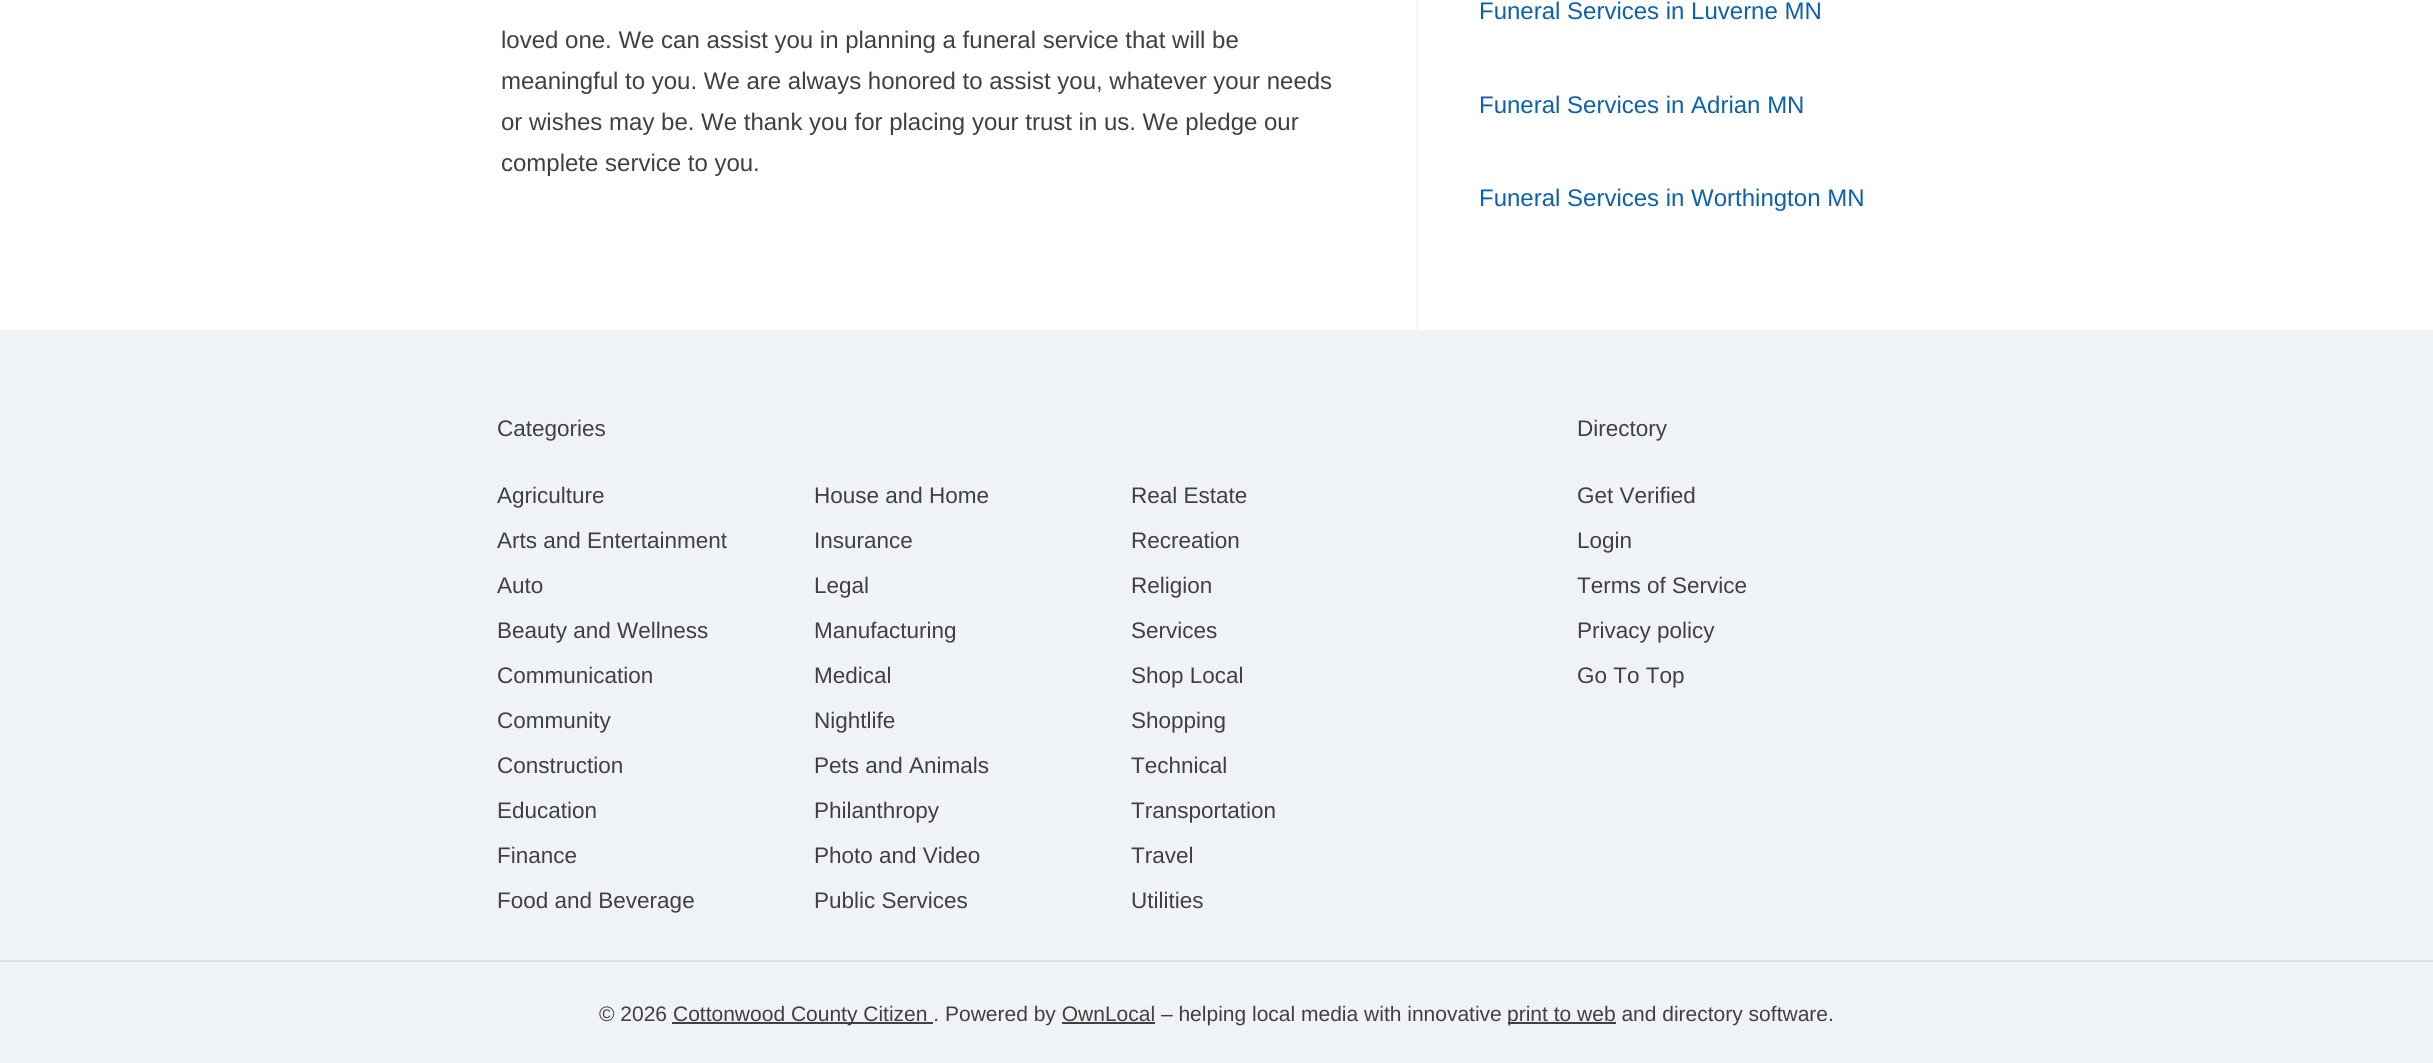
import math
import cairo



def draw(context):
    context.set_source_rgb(1, 1, 1)
    context.paint()
    context.set_source_rgb(246 / 255, 249 / 255, 252 / 255)
    context.rectangle(1416, 0, 3, 330)
    context.fill()
    context.set_source_rgb(239 / 255, 242 / 255, 246 / 255)
    context.rectangle(0, 330, 2433, 733)
    context.fill()
    context.set_source_rgb(223 / 255, 227 / 255, 234 / 255)
    context.rectangle(0, 960, 2433, 2)
    context.fill()
    context.set_source_rgb(64 / 255, 64 / 255, 64 / 255)
    context.rectangle(672, 1022, 261, 2)
    context.fill()
    context.rectangle(1508, 1022, 108, 2)
    context.fill()
    context.rectangle(1062, 1022, 93, 2)
    context.fill()
    context.select_font_face("Liberation Sans")
    context.set_font_size(24)
    context.move_to(501, 48)
    context.show_text("loved one. We can assist you in planning a funeral service that will be")
    context.move_to(501, 89)
    context.show_text("meaningful to you. We are always honored to assist you, whatever your needs")
    context.move_to(501, 130)
    context.show_text("or wishes may be. We thank you for placing your trust in us. We pledge our")
    context.move_to(501, 171)
    context.show_text("complete service to you.")
    context.set_source_rgb(13 / 255, 96 / 255, 171 / 255)
    context.move_to(1479, 19)
    context.show_text("Funeral Services in Luverne MN")
    context.move_to(1479, 113)
    context.show_text("Funeral Services in Adrian MN")
    context.move_to(1479, 206)
    context.show_text("Funeral Services in Worthington MN")
    context.set_font_size(22.5)
    context.set_source_rgb(64 / 255, 64 / 255, 64 / 255)
    context.move_to(497, 436)
    context.show_text("Categories")
    context.move_to(497, 503)
    context.show_text("Agriculture")
    context.move_to(814, 503)
    context.show_text("House and Home")
    context.move_to(1131, 503)
    context.show_text("Real Estate")
    context.move_to(497, 548)
    context.show_text("Arts and Entertainment")
    context.move_to(814, 548)
    context.show_text("Insurance")
    context.move_to(1131, 548)
    context.show_text("Recreation")
    context.move_to(497, 593)
    context.show_text("Auto")
    context.move_to(814, 593)
    context.show_text("Legal")
    context.move_to(1131, 593)
    context.show_text("Religion")
    context.move_to(497, 638)
    context.show_text("Beauty and Wellness")
    context.move_to(814, 638)
    context.show_text("Manufacturing")
    context.move_to(1131, 638)
    context.show_text("Services")
    context.move_to(497, 683)
    context.show_text("Communication")
    context.move_to(814, 683)
    context.show_text("Medical")
    context.move_to(1131, 683)
    context.show_text("Shop Local")
    context.move_to(497, 728)
    context.show_text("Community")
    context.move_to(814, 728)
    context.show_text("Nightlife")
    context.move_to(1131, 728)
    context.show_text("Shopping")
    context.move_to(497, 773)
    context.show_text("Construction")
    context.move_to(814, 773)
    context.show_text("Pets and Animals")
    context.move_to(1131, 773)
    context.show_text("Technical")
    context.move_to(497, 818)
    context.show_text("Education")
    context.move_to(814, 818)
    context.show_text("Philanthropy")
    context.move_to(1131, 818)
    context.show_text("Transportation")
    context.move_to(497, 863)
    context.show_text("Finance")
    context.move_to(814, 863)
    context.show_text("Photo and Video")
    context.move_to(1131, 863)
    context.show_text("Travel")
    context.move_to(497, 908)
    context.show_text("Food and Beverage")
    context.move_to(814, 908)
    context.show_text("Public Services")
    context.move_to(1131, 908)
    context.show_text("Utilities")
    context.move_to(1577, 436)
    context.show_text("Directory")
    context.move_to(1577, 503)
    context.show_text("Get Verified")
    context.move_to(1577, 548)
    context.show_text("Login")
    context.move_to(1577, 593)
    context.show_text("Terms of Service")
    context.move_to(1577, 638)
    context.show_text("Privacy policy")
    context.move_to(1577, 683)
    context.show_text("Go To Top")
    context.set_font_size(21)
    context.move_to(599, 1021)
    context.show_text("© 2026")
    context.move_to(673, 1021)
    context.show_text("Cottonwood County Citizen . Powered by OwnLocal – helping local media with innovative")
    context.move_to(1507, 1021)
    context.show_text("print to web and directory software.")


surface = cairo.ImageSurface(cairo.Format.RGB24, 2433, 1063)
context = cairo.Context(surface)
options = cairo.FontOptions()
options.set_hint_metrics(cairo.HintMetrics.OFF)
options.set_hint_style(cairo.HintStyle.NONE)
context.set_font_options(options)
context.set_miter_limit(4)
draw(context)
surface.write_to_png("out.png")
